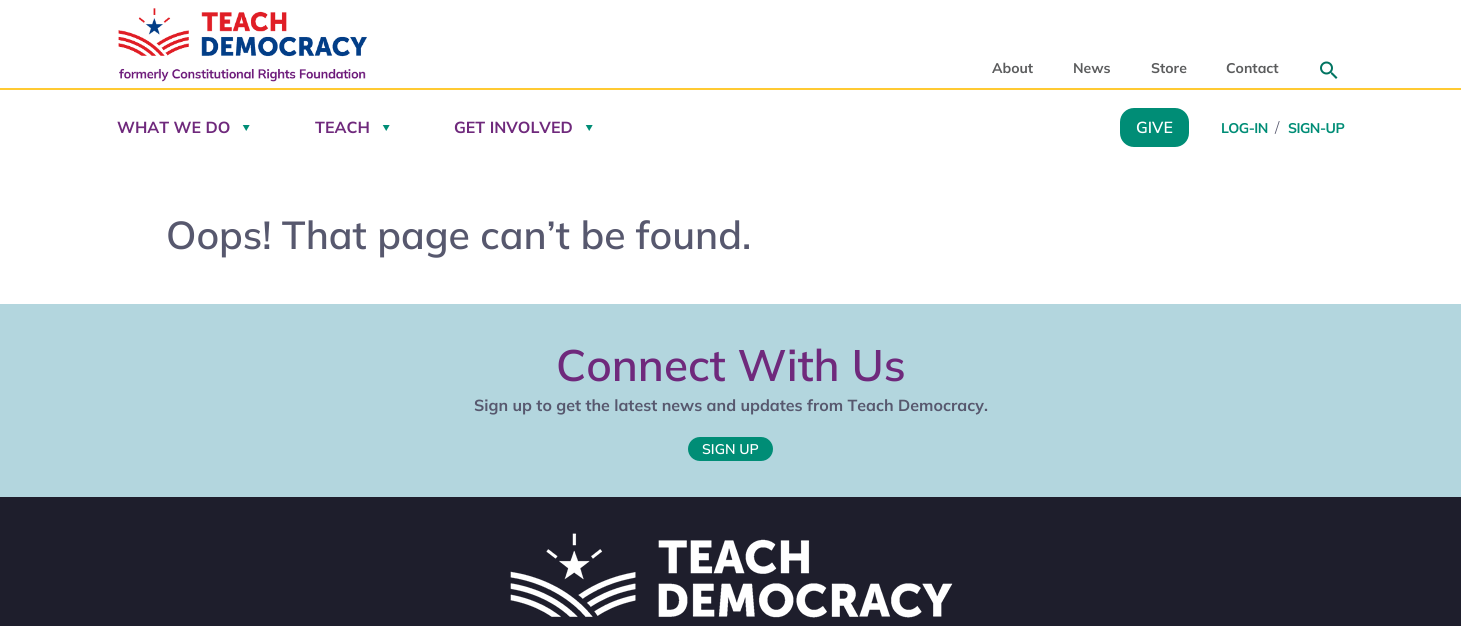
import math
import cairo



def draw_spaced(context, x, y, s, letter, word):
    context.move_to(x, y)
    for ch in s:
        context.show_text(ch)
        context.rel_move_to(letter + word * (ch == ' '), 0)


def rounded_rect(context, x, y, w, h, r):
    context.new_sub_path()
    for i, (u, v) in enumerate([(x + w - r, y + h - r), (x + r, y + h - r), (x + r, y + r), (x + w - r, y + r)]):
        context.arc(u, v, r, i * math.pi / 2, (i + 1) * math.pi / 2)
    context.close_path()


def draw_image(context, path, x, y, w, h):
    context.save()
    context.set_source_surface(cairo.ImageSurface.create_from_png(path), x, y)
    context.rectangle(x, y, w, h)
    context.fill()
    context.restore()


def draw(context):
    context.set_source_rgb(1, 1, 1)
    context.paint()
    context.set_source_rgb(1, 202 / 255, 50 / 255)
    context.rectangle(0, 88, 1461, 2)
    context.fill()
    draw_image(context, "images/1.png", 118, 8, 249, 74)
    draw_image(context, "images/2.png", 1320, 61, 18, 18)
    draw_image(context, "images/3.png", 242, 125, 8, 6)
    draw_image(context, "images/3.png", 382, 125, 8, 6)
    draw_image(context, "images/3.png", 585, 125, 8, 6)
    context.set_source_rgb(0, 141 / 255, 118 / 255)
    rounded_rect(context, 1120, 108, 69, 39, 14)
    context.fill()
    context.set_source_rgb(179 / 255, 214 / 255, 222 / 255)
    context.rectangle(0, 304, 1461, 193)
    context.fill()
    context.set_source_rgb(0, 141 / 255, 118 / 255)
    rounded_rect(context, 688, 437, 85, 24, 12)
    context.fill()
    context.set_source_rgb(30 / 255, 30 / 255, 44 / 255)
    context.rectangle(0, 497, 1461, 129)
    context.fill()
    draw_image(context, "images/4.png", 510, 533, 443, 85)
    context.select_font_face("Mulish", cairo.FontSlant.NORMAL, cairo.FontWeight.BOLD)
    context.set_font_size(14)
    context.set_source_rgb(91 / 255, 92 / 255, 93 / 255)
    context.move_to(992, 73)
    context.show_text("About")
    context.move_to(1073, 73)
    context.show_text("News")
    context.move_to(1151, 73)
    context.show_text("Store")
    context.move_to(1226, 73)
    context.show_text("Contact")
    context.set_font_size(16)
    context.set_source_rgb(111 / 255, 41 / 255, 124 / 255)
    context.move_to(117, 133)
    context.show_text("WHAT WE DO")
    context.move_to(315, 133)
    context.show_text("TEACH")
    context.move_to(454, 133)
    context.show_text("GET INVOLVED")
    context.select_font_face("Mulish SemiBold")
    context.set_source_rgb(1, 1, 1)
    context.move_to(1136, 133)
    context.show_text("GIVE")
    context.select_font_face("Mulish", cairo.FontSlant.NORMAL, cairo.FontWeight.BOLD)
    context.set_font_size(14)
    context.set_source_rgb(0, 141 / 255, 118 / 255)
    draw_spaced(context, 1221, 133, "LOG-IN", -0.5, 0)
    context.select_font_face("Mulish Light")
    context.set_font_size(16)
    context.set_source_rgb(87 / 255, 88 / 255, 110 / 255)
    context.move_to(1275, 133)
    context.show_text("/")
    context.select_font_face("Mulish", cairo.FontSlant.NORMAL, cairo.FontWeight.BOLD)
    context.set_font_size(14)
    context.set_source_rgb(0, 141 / 255, 118 / 255)
    draw_spaced(context, 1288, 133, "SIGN-UP", -0.5, 0)
    context.select_font_face("Mulish SemiBold")
    context.set_font_size(39)
    context.set_source_rgb(87 / 255, 88 / 255, 110 / 255)
    context.move_to(166, 249)
    context.show_text("Oops! That page can’t be found.")
    context.set_font_size(44)
    context.set_source_rgb(111 / 255, 41 / 255, 124 / 255)
    context.move_to(556, 381)
    context.show_text("Connect With Us")
    context.select_font_face("Mulish", cairo.FontSlant.NORMAL, cairo.FontWeight.BOLD)
    context.set_font_size(16)
    context.set_source_rgb(87 / 255, 88 / 255, 110 / 255)
    context.move_to(474, 411)
    context.show_text("Sign up to get the latest news and updates from Teach Democracy.")
    context.select_font_face("Mulish SemiBold")
    context.set_font_size(14)
    context.set_source_rgb(1, 1, 1)
    context.move_to(702, 454)
    context.show_text("SIGN UP")


surface = cairo.ImageSurface(cairo.Format.RGB24, 1461, 626)
context = cairo.Context(surface)
options = cairo.FontOptions()
options.set_hint_metrics(cairo.HintMetrics.OFF)
options.set_hint_style(cairo.HintStyle.NONE)
context.set_font_options(options)
context.set_miter_limit(4)
draw(context)
surface.write_to_png("out.png")
